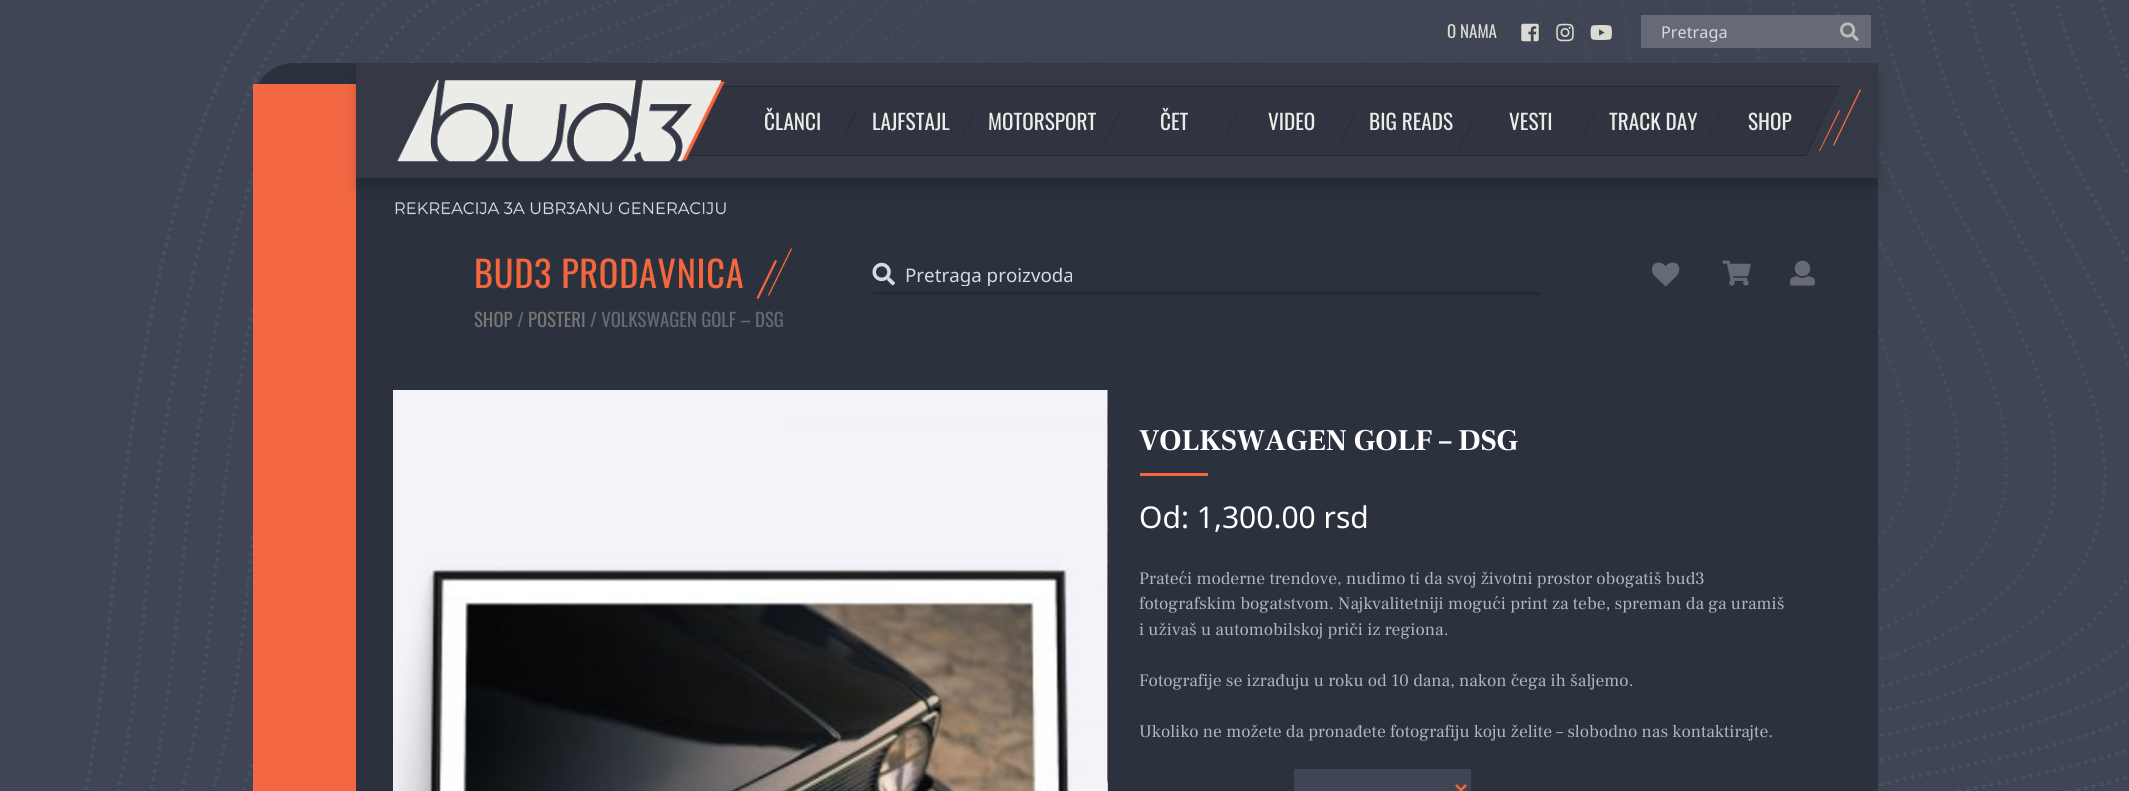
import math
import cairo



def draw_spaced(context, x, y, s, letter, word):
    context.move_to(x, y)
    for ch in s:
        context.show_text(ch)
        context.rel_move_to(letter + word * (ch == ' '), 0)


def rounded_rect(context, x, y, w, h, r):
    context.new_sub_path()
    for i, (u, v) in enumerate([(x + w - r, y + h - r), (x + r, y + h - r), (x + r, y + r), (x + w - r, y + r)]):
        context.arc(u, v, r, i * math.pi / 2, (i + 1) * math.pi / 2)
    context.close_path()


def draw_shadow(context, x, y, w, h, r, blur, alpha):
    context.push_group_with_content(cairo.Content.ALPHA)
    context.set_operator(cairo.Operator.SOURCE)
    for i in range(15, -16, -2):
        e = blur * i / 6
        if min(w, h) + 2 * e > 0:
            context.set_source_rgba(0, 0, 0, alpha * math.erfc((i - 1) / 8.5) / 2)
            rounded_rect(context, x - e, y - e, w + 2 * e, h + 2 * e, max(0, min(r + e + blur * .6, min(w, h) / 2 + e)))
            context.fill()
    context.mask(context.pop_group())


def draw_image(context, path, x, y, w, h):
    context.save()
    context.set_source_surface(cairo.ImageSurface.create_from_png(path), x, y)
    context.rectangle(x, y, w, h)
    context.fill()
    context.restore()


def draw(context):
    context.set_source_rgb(63 / 255, 69 / 255, 84 / 255)
    context.paint()
    draw_image(context, "images/1.png", 84, 0, 2045, 791)
    draw_image(context, "images/2.png", 1521, 23, 18, 19)
    draw_image(context, "images/3.png", 1556, 23, 18, 19)
    draw_image(context, "images/4.png", 1590, 25, 22, 15)
    context.set_source_rgb(101 / 255, 106 / 255, 118 / 255)
    context.rectangle(1641, 15, 230, 33)
    context.fill()
    draw_image(context, "images/5.png", 1840, 22, 19, 19)
    context.set_source_rgb(43 / 255, 50 / 255, 62 / 255)
    context.new_path()
    context.move_to(294, 63)
    context.line_to(1878, 63)
    context.line_to(1878, 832)
    context.line_to(294, 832)
    context.curve_to(271.5, 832, 253, 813.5, 253, 791)
    context.line_to(253, 104)
    context.curve_to(253, 81.5, 271.5, 63, 294, 63)
    context.close_path()
    context.fill()
    context.set_source_rgb(243 / 255, 104 / 255, 67 / 255)
    context.rectangle(253, 84, 103, 707)
    context.fill()
    context.set_source_rgb(0, 0, 0)
    draw_shadow(context, 356, 70, 1522, 115, 0, 4, 0.1)
    draw_shadow(context, 356, 75, 1522, 115, 0, 9.5, 0.1)
    context.set_source_rgb(53 / 255, 56 / 255, 69 / 255)
    context.rectangle(356, 63, 1522, 115)
    context.fill()
    context.set_source_rgb(49 / 255, 52 / 255, 64 / 255)
    context.rectangle(679, 87, 1165, 68)
    context.fill()
    context.set_source_rgb(36 / 255, 42 / 255, 53 / 255)
    context.rectangle(721, 86, 1125, 1)
    context.fill()
    context.rectangle(679, 155, 1167, 1)
    context.fill()
    draw_image(context, "images/6.png", 396, 80, 329, 82)
    draw_image(context, "images/7.png", 395, 202, 331, 13)
    context.set_source_rgb(44 / 255, 45 / 255, 49 / 255)
    context.new_path()
    context.move_to(856, 110)
    context.line_to(858, 111)
    context.line_to(838, 151)
    context.line_to(837, 151)
    context.close_path()
    context.fill()
    context.new_path()
    context.move_to(974, 110)
    context.line_to(975, 111)
    context.line_to(956, 151)
    context.line_to(955, 151)
    context.close_path()
    context.fill()
    context.new_path()
    context.move_to(1120, 110)
    context.line_to(1121, 111)
    context.line_to(1101, 151)
    context.line_to(1100, 151)
    context.close_path()
    context.fill()
    context.new_path()
    context.move_to(1238, 110)
    context.line_to(1239, 111)
    context.line_to(1219, 151)
    context.line_to(1218, 151)
    context.close_path()
    context.fill()
    context.new_path()
    context.move_to(1356, 110)
    context.line_to(1357, 111)
    context.line_to(1337, 151)
    context.line_to(1336, 151)
    context.close_path()
    context.fill()
    context.new_path()
    context.move_to(1477, 110)
    context.line_to(1478, 111)
    context.line_to(1459, 151)
    context.line_to(1457, 151)
    context.close_path()
    context.fill()
    context.new_path()
    context.move_to(1595, 110)
    context.line_to(1596, 111)
    context.line_to(1576, 151)
    context.line_to(1575, 151)
    context.close_path()
    context.fill()
    context.new_path()
    context.move_to(1721, 110)
    context.line_to(1722, 111)
    context.line_to(1702, 151)
    context.line_to(1701, 151)
    context.close_path()
    context.fill()
    context.set_source_rgb(36 / 255, 42 / 255, 53 / 255)
    context.new_path()
    context.move_to(1838, 88)
    context.line_to(1839, 89)
    context.line_to(1806, 156)
    context.line_to(1805, 156)
    context.close_path()
    context.fill()
    context.set_source_rgb(53 / 255, 56 / 255, 69 / 255)
    context.new_path()
    context.move_to(1846, 71)
    context.line_to(1846, 159)
    context.line_to(1824, 119)
    context.close_path()
    context.fill()
    context.new_path()
    context.move_to(1846, 159)
    context.line_to(1805, 159)
    context.line_to(1824, 119)
    context.close_path()
    context.fill()
    context.set_source_rgb(243 / 255, 104 / 255, 67 / 255)
    context.new_path()
    context.move_to(1839, 110)
    context.line_to(1840, 111)
    context.line_to(1820, 151)
    context.line_to(1819, 151)
    context.close_path()
    context.fill()
    context.new_path()
    context.move_to(1860, 89)
    context.line_to(1861, 90)
    context.line_to(1834, 146)
    context.line_to(1833, 145)
    context.close_path()
    context.fill()
    context.set_source_rgb(244 / 255, 102 / 255, 60 / 255)
    context.new_path()
    context.move_to(775, 260)
    context.line_to(777, 261)
    context.line_to(758.5, 299)
    context.line_to(756.5, 298)
    context.close_path()
    context.fill()
    context.new_path()
    context.move_to(791, 248)
    context.line_to(792, 249)
    context.line_to(769, 296)
    context.line_to(768, 295)
    context.close_path()
    context.fill()
    draw_image(context, "images/8.png", 872, 262, 23, 24)
    context.set_source_rgb(36 / 255, 42 / 255, 53 / 255)
    context.new_path()
    context.move_to(1540, 295)
    context.line_to(872, 295)
    context.line_to(874, 292)
    context.line_to(1539, 292)
    context.close_path()
    context.fill()
    draw_image(context, "images/9.png", 1652, 262, 28, 25)
    draw_image(context, "images/10.png", 1722, 260, 29, 26)
    draw_image(context, "images/11.png", 1790, 260, 25, 26)
    draw_image(context, "images/12.png", 393, 390, 715, 401)
    draw_image(context, "images/13.png", 1107, 390, 1, 401)
    context.set_source_rgb(244 / 255, 102 / 255, 60 / 255)
    context.rectangle(1140, 473, 68, 3)
    context.fill()
    context.set_source_rgb(63 / 255, 69 / 255, 84 / 255)
    context.rectangle(1294, 769, 177, 22)
    context.fill()
    context.new_path()
    context.move_to(1456, 785)
    context.line_to(1461, 790)
    context.line_to(1466, 785)
    context.set_source_rgb(244 / 255, 102 / 255, 60 / 255)
    context.set_line_width(2.5)
    context.stroke()
    context.select_font_face("Oswald")
    context.set_font_size(17)
    context.set_source_rgb(218 / 255, 219 / 255, 209 / 255)
    context.move_to(1447, 38)
    context.show_text("O NAMA")
    context.select_font_face("Noto Sans")
    context.set_font_size(16.25)
    context.set_source_rgb(214 / 255, 218 / 255, 230 / 255)
    context.move_to(1661, 38)
    context.show_text("Pretraga")
    context.select_font_face("Oswald")
    context.set_font_size(21.25)
    context.set_source_rgb(235 / 255, 236 / 255, 231 / 255)
    context.move_to(764, 130)
    context.show_text("ČLANCI")
    context.move_to(872, 130)
    context.show_text("LAJFSTAJL")
    context.move_to(988, 130)
    context.show_text("MOTORSPORT")
    context.move_to(1160, 130)
    context.show_text("ČET")
    context.move_to(1268, 130)
    context.show_text("VIDEO")
    context.move_to(1369, 130)
    context.show_text("BIG READS")
    context.move_to(1509, 130)
    context.show_text("VESTI")
    context.move_to(1609, 130)
    context.show_text("TRACK DAY")
    context.move_to(1748, 130)
    context.show_text("SHOP")
    context.set_font_size(36.25)
    context.set_source_rgb(244 / 255, 102 / 255, 60 / 255)
    draw_spaced(context, 474, 288, "BUD3 PRODAVNICA", 0.75, 0)
    context.set_font_size(18.75)
    context.set_source_rgb(118 / 255, 118 / 255, 118 / 255)
    context.move_to(474, 327)
    context.show_text("SHOP")
    context.set_source_rgb(101 / 255, 106 / 255, 118 / 255)
    context.move_to(517, 327)
    context.show_text("/")
    context.set_source_rgb(118 / 255, 118 / 255, 118 / 255)
    context.move_to(528, 327)
    context.show_text("POSTERI")
    context.set_source_rgb(101 / 255, 106 / 255, 118 / 255)
    context.move_to(590, 327)
    context.show_text("/ VOLKSWAGEN GOLF – DSG")
    context.save()
    context.rectangle(905, 261, 610, 25)
    context.clip()
    context.select_font_face("Noto Sans")
    context.set_source_rgb(214 / 255, 218 / 255, 230 / 255)
    context.move_to(905, 282)
    context.show_text("Pretraga proizvoda")
    context.restore()
    context.select_font_face("Frank Ruhl Libre", cairo.FontSlant.NORMAL, cairo.FontWeight.BOLD)
    context.set_font_size(30)
    context.set_source_rgb(1, 1, 1)
    context.move_to(1139, 450)
    context.show_text("VOLKSWAGEN GOLF – DSG")
    context.select_font_face("Noto Sans")
    context.move_to(1139, 528)
    context.show_text("Od: 1,300.00 rsd")
    context.select_font_face("Frank Ruhl Libre")
    context.set_font_size(17.5)
    context.set_source_rgb(178 / 255, 181 / 255, 187 / 255)
    context.move_to(1139, 584)
    context.show_text("Prateći moderne trendove, nudimo ti da svoj životni prostor obogatiš bud3")
    context.move_to(1139, 609)
    context.show_text("fotografskim bogatstvom. Najkvalitetniji mogući print za tebe, spreman da ga uramiš")
    context.move_to(1139, 635)
    context.show_text("i uživaš u automobilskoj priči iz regiona.")
    context.move_to(1139, 686)
    context.show_text("Fotografije se izrađuju u roku od 10 dana, nakon čega ih šaljemo.")
    context.move_to(1139, 737)
    context.show_text("Ukoliko ne možete da pronađete fotografiju koju želite – slobodno nas kontaktirajte.")


surface = cairo.ImageSurface(cairo.Format.RGB24, 2129, 791)
context = cairo.Context(surface)
options = cairo.FontOptions()
options.set_hint_metrics(cairo.HintMetrics.OFF)
options.set_hint_style(cairo.HintStyle.NONE)
context.set_font_options(options)
context.set_miter_limit(4)
draw(context)
surface.write_to_png("out.png")
